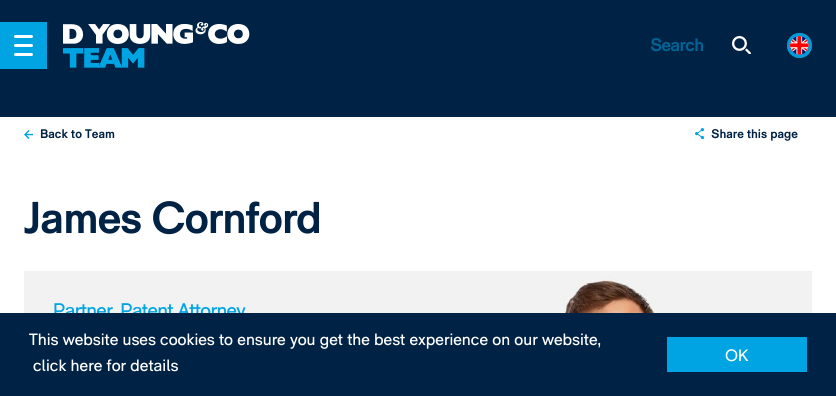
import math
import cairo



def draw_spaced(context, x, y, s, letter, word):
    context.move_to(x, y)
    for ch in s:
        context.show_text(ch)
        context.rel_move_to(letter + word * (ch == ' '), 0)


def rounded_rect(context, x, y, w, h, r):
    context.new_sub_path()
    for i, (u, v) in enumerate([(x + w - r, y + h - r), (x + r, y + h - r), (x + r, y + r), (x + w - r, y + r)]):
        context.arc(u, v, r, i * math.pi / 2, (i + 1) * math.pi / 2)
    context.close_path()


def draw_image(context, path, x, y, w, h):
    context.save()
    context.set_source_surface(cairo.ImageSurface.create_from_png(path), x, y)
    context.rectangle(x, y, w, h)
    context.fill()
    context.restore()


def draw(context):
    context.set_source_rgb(1, 1, 1)
    context.paint()
    context.set_source_rgb(0, 34 / 255, 68 / 255)
    context.rectangle(0, 0, 836, 117)
    context.fill()
    context.set_source_rgb(0, 164 / 255, 227 / 255)
    context.rectangle(0, 22, 47, 47)
    context.fill()
    context.set_source_rgb(1, 1, 1)
    rounded_rect(context, 14, 44, 19, 3, 1.5)
    context.fill()
    rounded_rect(context, 14, 35, 19, 3, 1.5)
    context.fill()
    rounded_rect(context, 14, 53, 19, 3, 1.5)
    context.fill()
    draw_image(context, "images/1.png", 63, 22, 187, 22)
    draw_image(context, "images/2.png", 63, 48, 82, 20)
    draw_image(context, "images/3.png", 732, 36, 19, 18)
    context.set_source_rgb(0, 132 / 255, 187 / 255)
    context.arc(799.5, 45.5, 12.5, 0, 2 * math.pi)
    context.fill()
    context.arc(799.5, 45.5, 11, 0, 2 * math.pi)
    context.set_source_rgba(0, 164 / 255, 227 / 255, 0.75)
    context.set_line_width(3)
    context.stroke()
    draw_image(context, "images/4.png", 790, 36, 19, 19)
    draw_image(context, "images/5.png", 24, 130, 9, 9)
    draw_image(context, "images/6.png", 695, 128, 9, 11)
    context.set_source_rgb(242 / 255, 242 / 255, 242 / 255)
    context.rectangle(24, 271, 788, 42)
    context.fill()
    draw_image(context, "images/7.png", 550, 277, 120, 36)
    context.select_font_face("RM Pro", cairo.FontSlant.NORMAL, cairo.FontWeight.BOLD)
    context.set_font_size(18)
    context.set_source_rgb(0, 99 / 255, 148 / 255)
    draw_spaced(context, 650, 51, "Search", -0.5, 0)
    context.set_font_size(12.5)
    context.set_source_rgb(0, 34 / 255, 68 / 255)
    context.move_to(40, 138)
    context.show_text("Back to Team")
    context.move_to(711, 138)
    context.show_text("Share this page")
    context.set_font_size(44.5)
    draw_spaced(context, 24, 233, "James Cornford", -0.9, 0)
    context.select_font_face("RM Pro")
    context.set_font_size(19.75)
    context.set_source_rgb(0, 164 / 255, 227 / 255)
    draw_spaced(context, 53, 317, "Partner, Patent Attorney", -0.6, 0)
    context.set_source_rgb(0, 34 / 255, 68 / 255)
    context.rectangle(0, 313, 836, 83)
    context.fill()
    context.set_font_size(16.4)
    context.set_source_rgb(1, 1, 1)
    context.move_to(29, 345)
    context.show_text("This website uses cookies to ensure you get the best experience on our website,")
    context.move_to(33, 371)
    context.show_text("click here for details")
    context.set_source_rgb(0, 164 / 255, 227 / 255)
    context.rectangle(667, 337, 140, 35)
    context.fill()
    context.set_source_rgb(1, 1, 1)
    context.move_to(725, 361)
    context.show_text("OK")


surface = cairo.ImageSurface(cairo.Format.RGB24, 836, 396)
context = cairo.Context(surface)
options = cairo.FontOptions()
options.set_hint_metrics(cairo.HintMetrics.OFF)
options.set_hint_style(cairo.HintStyle.NONE)
context.set_font_options(options)
context.set_miter_limit(4)
draw(context)
surface.write_to_png("out.png")
